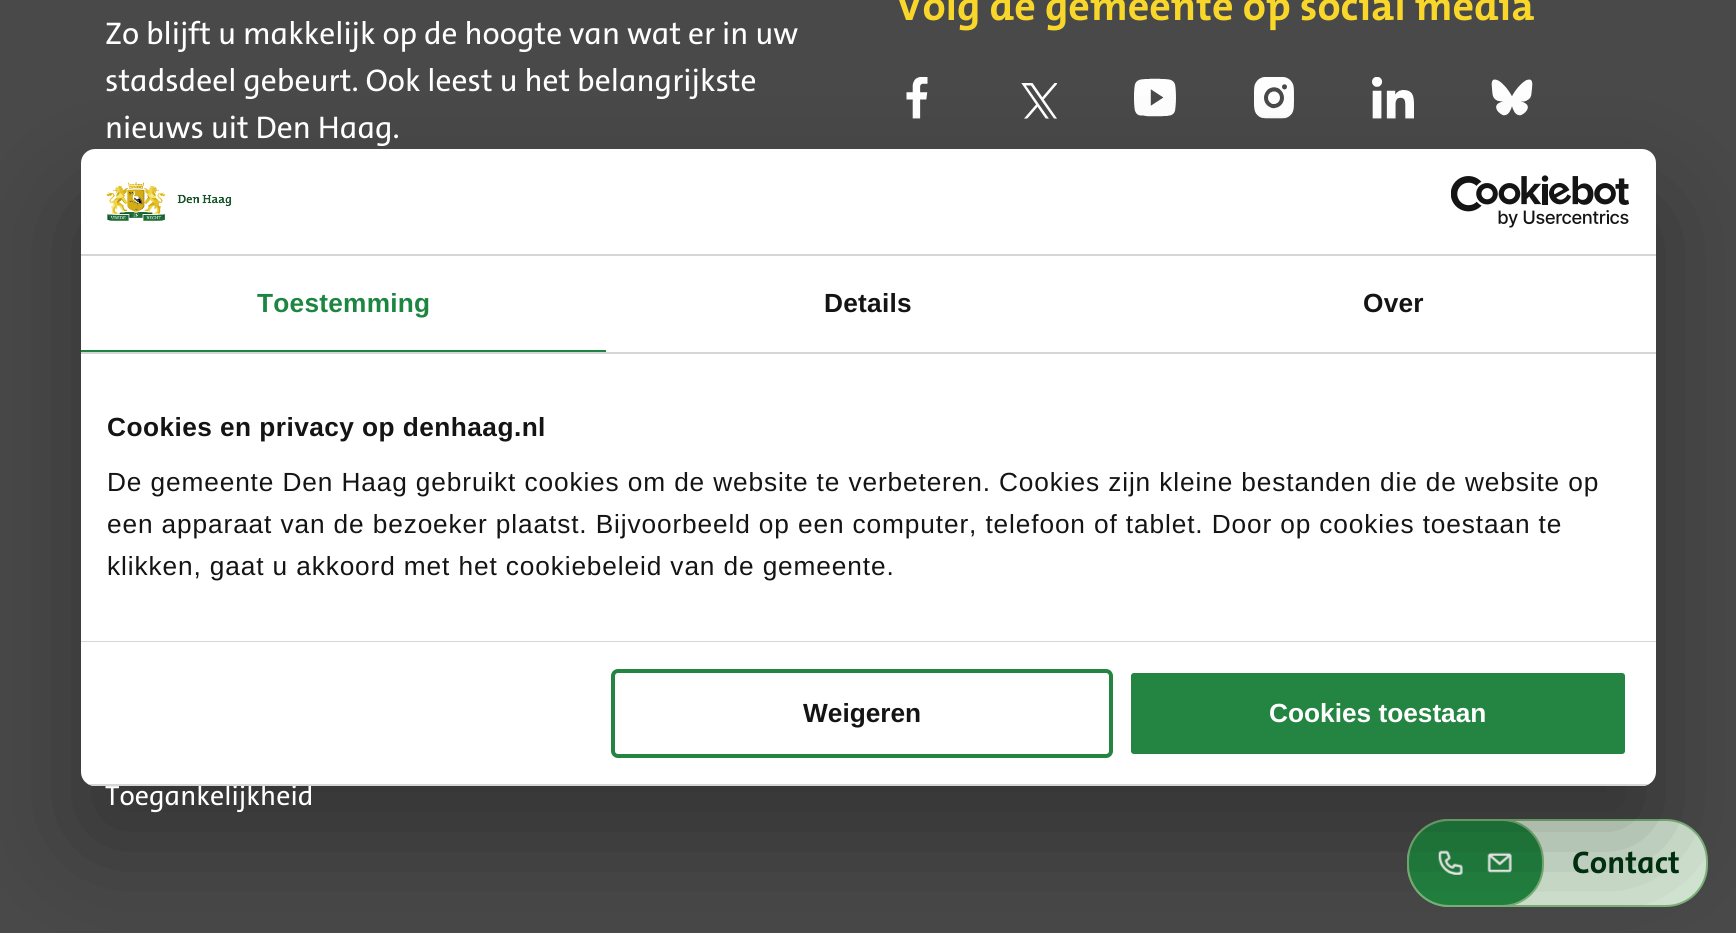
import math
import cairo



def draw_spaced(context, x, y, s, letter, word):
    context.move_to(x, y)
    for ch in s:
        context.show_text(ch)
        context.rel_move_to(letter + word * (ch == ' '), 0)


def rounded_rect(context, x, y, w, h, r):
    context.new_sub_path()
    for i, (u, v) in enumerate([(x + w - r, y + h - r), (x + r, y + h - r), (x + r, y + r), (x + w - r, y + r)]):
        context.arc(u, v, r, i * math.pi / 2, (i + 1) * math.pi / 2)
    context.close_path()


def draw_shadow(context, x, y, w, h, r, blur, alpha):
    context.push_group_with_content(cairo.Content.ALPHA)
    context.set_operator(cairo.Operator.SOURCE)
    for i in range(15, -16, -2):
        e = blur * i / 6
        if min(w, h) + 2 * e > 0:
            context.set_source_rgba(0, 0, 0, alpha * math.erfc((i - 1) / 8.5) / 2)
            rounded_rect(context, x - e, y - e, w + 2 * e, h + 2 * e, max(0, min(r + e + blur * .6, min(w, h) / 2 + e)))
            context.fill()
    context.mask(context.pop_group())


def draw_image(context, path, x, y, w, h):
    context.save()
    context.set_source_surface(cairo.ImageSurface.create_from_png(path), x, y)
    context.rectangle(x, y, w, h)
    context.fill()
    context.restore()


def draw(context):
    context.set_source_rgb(73 / 255, 73 / 255, 73 / 255)
    context.paint()
    draw_image(context, "images/1.png", 906, 77, 22, 42)
    draw_image(context, "images/2.png", 1021, 83, 36, 36)
    draw_image(context, "images/3.png", 1134, 78, 42, 39)
    draw_image(context, "images/4.png", 1254, 77, 40, 42)
    draw_image(context, "images/5.png", 1372, 77, 42, 42)
    draw_image(context, "images/6.png", 1491, 79, 42, 37)
    context.set_source_rgb(213 / 255, 231 / 255, 213 / 255)
    rounded_rect(context, 1408, 820, 299, 86, 41)
    context.fill_preserve()
    context.set_source_rgb(126 / 255, 182 / 255, 124 / 255)
    context.stroke()
    context.set_source_rgb(35 / 255, 133 / 255, 65 / 255)
    rounded_rect(context, 1408, 820, 135, 86, 41)
    context.fill_preserve()
    context.set_source_rgb(126 / 255, 182 / 255, 124 / 255)
    context.stroke()
    draw_image(context, "images/9.png", 1438, 850, 25, 25)
    draw_image(context, "images/10.png", 1487, 852, 25, 21)
    context.set_source_rgb(0, 0, 0)
    draw_shadow(context, 81, 205, 1575, 637, 14, 59.5, 0.3)
    context.set_source_rgb(1, 1, 1)
    rounded_rect(context, 81, 149, 1575, 637, 14)
    context.fill()
    context.set_source_rgb(214 / 255, 214 / 255, 214 / 255)
    context.rectangle(81, 254, 1575, 2)
    context.fill()
    draw_image(context, "images/7.png", 106, 182, 126, 39)
    draw_image(context, "images/8.png", 1451, 175, 178, 53)
    context.rectangle(81, 352, 1575, 2)
    context.fill()
    context.set_source_rgb(28 / 255, 134 / 255, 65 / 255)
    context.rectangle(81, 350, 525, 2)
    context.fill()
    context.set_source_rgb(214 / 255, 214 / 255, 214 / 255)
    context.rectangle(81, 641, 1575, 1)
    context.fill()
    rounded_rect(context, 613, 671, 498, 85, 5)
    context.set_source_rgb(35 / 255, 133 / 255, 65 / 255)
    context.set_line_width(4)
    context.stroke()
    rounded_rect(context, 1129, 671, 498, 85, 5)
    context.fill_preserve()
    context.set_source_rgb(1, 1, 1)
    context.stroke()
    context.select_font_face("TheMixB", cairo.FontSlant.NORMAL, cairo.FontWeight.BOLD)
    context.set_font_size(42)
    context.set_source_rgb(248 / 255, 214 / 255, 42 / 255)
    context.move_to(896, 20)
    context.show_text("Volg de gemeente op social media")
    context.select_font_face("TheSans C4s")
    context.set_font_size(31.5)
    context.set_source_rgb(1, 1, 1)
    context.move_to(105, 44)
    context.show_text("Zo blijft u makkelijk op de hoogte van wat er in uw")
    context.move_to(105, 91)
    context.show_text("stadsdeel gebeurt. Ook leest u het belangrijkste")
    context.move_to(105, 138)
    context.show_text("nieuws uit Den Haag.")
    context.set_font_size(28)
    context.move_to(105, 805)
    context.show_text("Toegankelijkheid")
    context.select_font_face("Liberation Sans", cairo.FontSlant.NORMAL, cairo.FontWeight.BOLD)
    context.set_font_size(26.25)
    context.set_source_rgb(28 / 255, 134 / 255, 65 / 255)
    draw_spaced(context, 257, 312, "Toestemming", 0.25, 0)
    context.set_source_rgb(20 / 255, 20 / 255, 20 / 255)
    draw_spaced(context, 824, 312, "Details", 0.25, 0)
    draw_spaced(context, 1363, 312, "Over", 0.25, 0)
    draw_spaced(context, 107, 436, "Cookies en privacy op denhaag.nl", 0.45, 0)
    context.select_font_face("Liberation Sans")
    draw_spaced(context, 107, 491, "De gemeente Den Haag gebruikt cookies om de website te verbeteren. Cookies zijn kleine bestanden die de website op", 0.88, 0)
    draw_spaced(context, 107, 533, "een apparaat van de bezoeker plaatst. Bijvoorbeeld op een computer, telefoon of tablet. Door op cookies toestaan te", 0.88, 0)
    draw_spaced(context, 107, 575, "klikken, gaat u akkoord met het cookiebeleid van de gemeente.", 0.88, 0)
    context.save()
    rounded_rect(context, 81, 149, 1575, 637, 14)
    context.clip()
    context.set_source_rgb(214 / 255, 214 / 255, 214 / 255)
    context.rectangle(81, 784, 1575, 2)
    context.fill()
    context.restore()
    context.select_font_face("Liberation Sans", cairo.FontSlant.NORMAL, cairo.FontWeight.BOLD)
    context.move_to(803, 722)
    context.show_text("Weigeren")
    context.set_source_rgb(1, 1, 1)
    context.move_to(1269, 722)
    context.show_text("Cookies toestaan")
    context.select_font_face("TheSans C4s", cairo.FontSlant.NORMAL, cairo.FontWeight.BOLD)
    context.set_font_size(31.5)
    context.set_source_rgb(0, 46 / 255, 15 / 255)
    context.move_to(1572, 873)
    context.show_text("Contact")


surface = cairo.ImageSurface(cairo.Format.RGB24, 1736, 933)
context = cairo.Context(surface)
options = cairo.FontOptions()
options.set_hint_metrics(cairo.HintMetrics.OFF)
options.set_hint_style(cairo.HintStyle.NONE)
context.set_font_options(options)
context.set_miter_limit(4)
draw(context)
surface.write_to_png("out.png")
